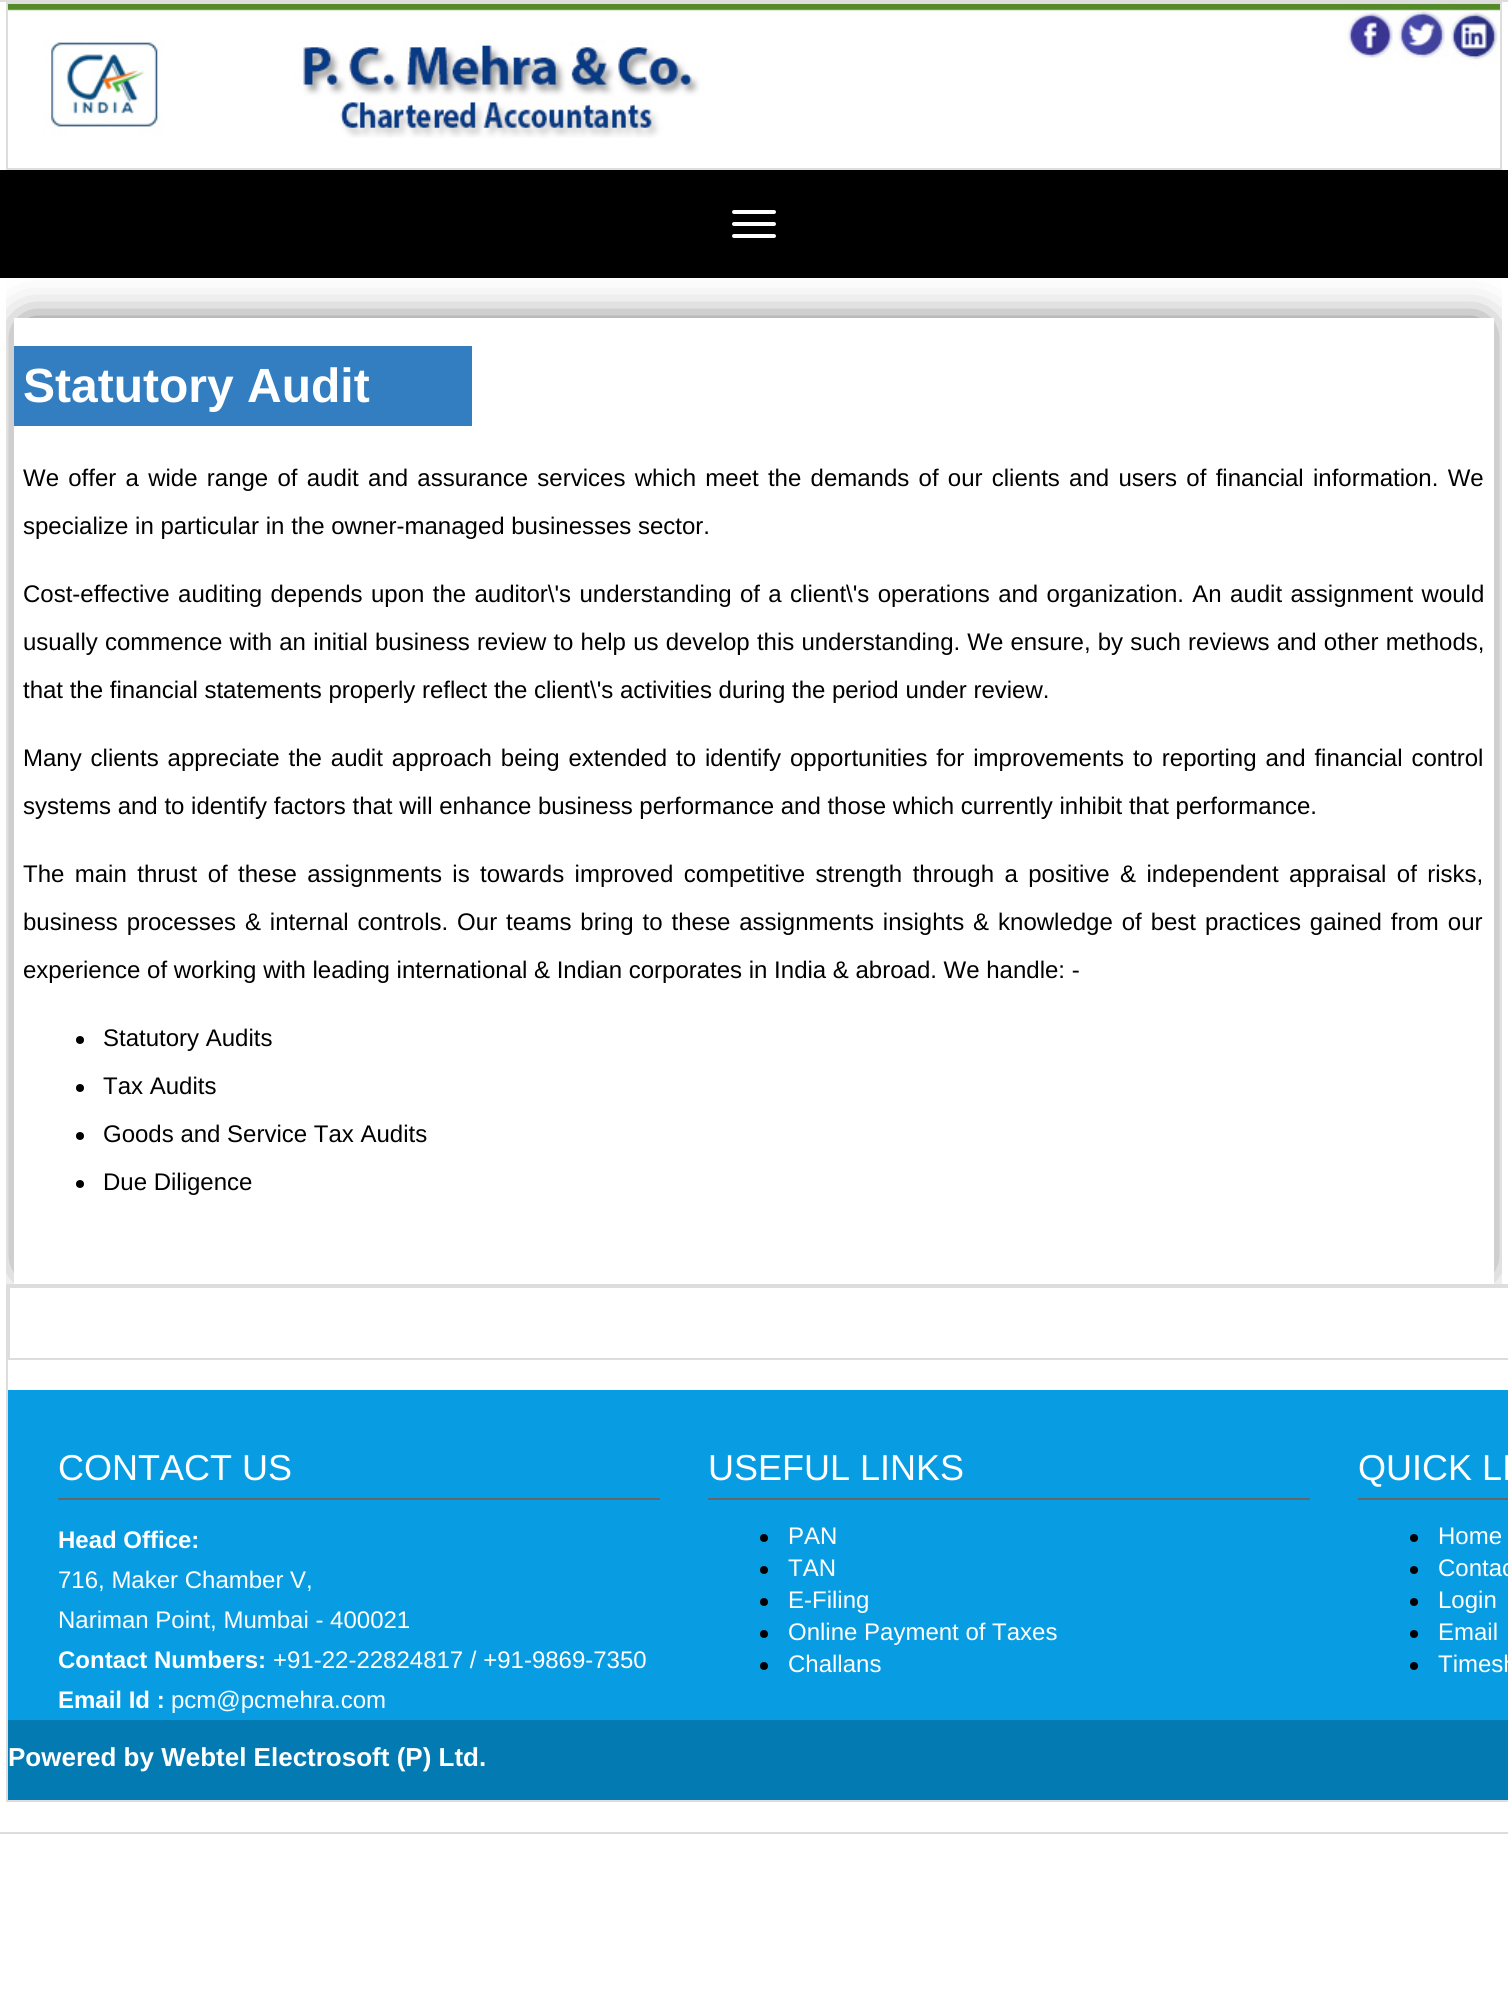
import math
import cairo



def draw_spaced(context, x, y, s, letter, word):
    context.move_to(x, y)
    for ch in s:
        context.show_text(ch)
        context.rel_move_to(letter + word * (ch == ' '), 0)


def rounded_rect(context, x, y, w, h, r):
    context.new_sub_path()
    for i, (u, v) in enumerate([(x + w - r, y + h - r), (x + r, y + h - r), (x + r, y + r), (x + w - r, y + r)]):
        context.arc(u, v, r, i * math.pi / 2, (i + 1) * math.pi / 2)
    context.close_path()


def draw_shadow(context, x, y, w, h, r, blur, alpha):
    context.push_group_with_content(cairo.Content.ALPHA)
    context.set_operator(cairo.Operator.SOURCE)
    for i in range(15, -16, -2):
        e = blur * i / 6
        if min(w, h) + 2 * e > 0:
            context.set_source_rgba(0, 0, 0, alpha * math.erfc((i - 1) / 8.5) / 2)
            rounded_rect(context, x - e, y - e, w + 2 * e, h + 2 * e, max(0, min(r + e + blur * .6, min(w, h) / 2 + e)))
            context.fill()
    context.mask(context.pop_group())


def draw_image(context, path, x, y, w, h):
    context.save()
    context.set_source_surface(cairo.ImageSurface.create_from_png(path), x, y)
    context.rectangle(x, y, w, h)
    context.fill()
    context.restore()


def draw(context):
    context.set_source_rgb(1, 1, 1)
    context.paint()
    context.rectangle(-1, 1, 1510, 1832)
    context.set_source_rgb(221 / 255, 221 / 255, 221 / 255)
    context.stroke()
    context.rectangle(6, 2, 1496, 2)
    context.fill()
    context.rectangle(1500, 2, 2, 168)
    context.fill()
    context.rectangle(6, 168, 1496, 2)
    context.fill()
    context.rectangle(6, 2, 2, 168)
    context.fill()
    draw_image(context, "images/1.png", 8, 4, 1492, 134)
    context.rectangle(6, 1284, 1502, 2)
    context.fill()
    context.rectangle(6, 1800, 1502, 2)
    context.fill()
    context.rectangle(6, 1284, 2, 518)
    context.fill()
    context.rectangle(8, 1286, 1500, 2)
    context.fill()
    context.rectangle(8, 1358, 1500, 2)
    context.fill()
    context.rectangle(8, 1286, 2, 74)
    context.fill()
    context.save()
    context.rectangle(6, 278, 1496, 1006)
    context.clip()
    context.set_fill_rule(cairo.FillRule.EVEN_ODD)
    context.new_path()
    context.move_to(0, 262)
    context.line_to(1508, 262)
    context.line_to(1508, 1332)
    context.line_to(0, 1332)
    context.close_path()
    context.move_to(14, 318)
    context.line_to(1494, 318)
    context.line_to(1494, 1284)
    context.line_to(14, 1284)
    context.close_path()
    context.clip()
    context.set_source_rgb(0, 0, 0)
    draw_shadow(context, 26, 326, 1456, 942, 0, 21, 0.75)
    context.restore()
    context.set_source_rgb(0, 0, 0)
    context.rectangle(0, 170, 1508, 108)
    context.fill()
    context.set_source_rgb(1, 1, 1)
    rounded_rect(context, 732, 210, 44, 4, 2)
    context.fill()
    rounded_rect(context, 732, 222, 44, 4, 2)
    context.fill()
    rounded_rect(context, 732, 234, 44, 4, 2)
    context.fill()
    context.set_source_rgb(51 / 255, 126 / 255, 192 / 255)
    context.rectangle(14, 346, 458, 80)
    context.fill()
    context.set_source_rgb(0, 0, 0)
    context.arc(80, 1040, 4, 0, 2 * math.pi)
    context.fill()
    context.arc(80, 1088, 4, 0, 2 * math.pi)
    context.fill()
    context.arc(80, 1136, 4, 0, 2 * math.pi)
    context.fill()
    context.arc(80, 1184, 4, 0, 2 * math.pi)
    context.fill()
    context.set_source_rgb(8 / 255, 157 / 255, 227 / 255)
    context.rectangle(8, 1390, 1500, 330)
    context.fill()
    context.set_source_rgb(102 / 255, 102 / 255, 102 / 255)
    context.rectangle(58, 1498, 602, 2)
    context.fill()
    context.rectangle(708, 1498, 602, 2)
    context.fill()
    context.rectangle(1358, 1498, 150, 2)
    context.fill()
    context.set_source_rgb(0, 0, 0)
    context.arc(764, 1538, 4, 0, 2 * math.pi)
    context.fill()
    context.arc(764, 1570, 4, 0, 2 * math.pi)
    context.fill()
    context.arc(764, 1602, 4, 0, 2 * math.pi)
    context.fill()
    context.arc(764, 1634, 4, 0, 2 * math.pi)
    context.fill()
    context.arc(764, 1666, 4, 0, 2 * math.pi)
    context.fill()
    context.arc(1414, 1538, 4, 0, 2 * math.pi)
    context.fill()
    context.arc(1414, 1570, 4, 0, 2 * math.pi)
    context.fill()
    context.arc(1414, 1602, 4, 0, 2 * math.pi)
    context.fill()
    context.arc(1414, 1634, 4, 0, 2 * math.pi)
    context.fill()
    context.arc(1414, 1666, 4, 0, 2 * math.pi)
    context.fill()
    context.set_source_rgb(3 / 255, 122 / 255, 177 / 255)
    context.rectangle(8, 1720, 1500, 80)
    context.fill()
    context.select_font_face("Liberation Sans", cairo.FontSlant.NORMAL, cairo.FontWeight.BOLD)
    context.set_font_size(48)
    context.set_source_rgb(1, 1, 1)
    context.move_to(23, 402)
    context.show_text("Statutory Audit")
    context.select_font_face("Liberation Sans")
    context.set_font_size(24)
    context.set_source_rgb(0, 0, 0)
    draw_spaced(context, 23, 486, "We offer a wide range of audit and assurance services which meet the demands of our clients and users of financial information. We", 0, 2.6)
    context.move_to(23, 534)
    context.show_text("specialize in particular in the owner-managed businesses sector.")
    draw_spaced(context, 23, 602, "Cost-effective auditing depends upon the auditor\\'s understanding of a client\\'s operations and organization. An audit assignment would", 0, 1.7)
    draw_spaced(context, 23, 650, "usually commence with an initial business review to help us develop this understanding. We ensure, by such reviews and other methods,", 0, 0.5)
    context.move_to(23, 698)
    context.show_text("that the financial statements properly reflect the client\\'s activities during the period under review.")
    draw_spaced(context, 23, 766, "Many clients appreciate the audit approach being extended to identify opportunities for improvements to reporting and financial control", 0, 2.25)
    context.move_to(23, 814)
    context.show_text("systems and to identify factors that will enhance business performance and those which currently inhibit that performance.")
    draw_spaced(context, 23, 882, "The main thrust of these assignments is towards improved competitive strength through a positive & independent appraisal of risks,", 0, 3.75)
    draw_spaced(context, 23, 930, "business processes & internal controls. Our teams bring to these assignments insights & knowledge of best practices gained from our", 0, 2.25)
    context.move_to(23, 978)
    context.show_text("experience of working with leading international & Indian corporates in India & abroad. We handle: -")
    context.move_to(103, 1046)
    context.show_text("Statutory Audits")
    context.move_to(103, 1094)
    context.show_text("Tax Audits")
    context.move_to(103, 1142)
    context.show_text("Goods and Service Tax Audits")
    context.move_to(103, 1190)
    context.show_text("Due Diligence")
    context.set_font_size(36)
    context.set_source_rgb(1, 1, 1)
    context.move_to(58, 1480)
    context.show_text("CONTACT US")
    context.move_to(708, 1480)
    context.show_text("USEFUL LINKS")
    context.move_to(1358, 1480)
    context.show_text("QUICK LI")
    context.select_font_face("Liberation Sans", cairo.FontSlant.NORMAL, cairo.FontWeight.BOLD)
    context.set_font_size(24)
    context.move_to(58, 1548)
    context.show_text("Head Office:")
    context.select_font_face("Liberation Sans")
    context.move_to(58, 1588)
    context.show_text("716, Maker Chamber V,")
    context.move_to(58, 1628)
    context.show_text("Nariman Point, Mumbai - 400021")
    context.select_font_face("Liberation Sans", cairo.FontSlant.NORMAL, cairo.FontWeight.BOLD)
    context.move_to(58, 1668)
    context.show_text("Contact Numbers:")
    context.select_font_face("Liberation Sans")
    context.move_to(273, 1668)
    context.show_text("+91-22-22824817 / +91-9869-7350")
    context.select_font_face("Liberation Sans", cairo.FontSlant.NORMAL, cairo.FontWeight.BOLD)
    context.move_to(58, 1708)
    context.show_text("Email Id :")
    context.select_font_face("Liberation Sans")
    context.move_to(171, 1708)
    context.show_text("pcm@pcmehra.com")
    context.move_to(788, 1544)
    context.show_text("PAN")
    context.move_to(788, 1576)
    context.show_text("TAN")
    context.move_to(788, 1608)
    context.show_text("E-Filing")
    context.move_to(788, 1640)
    context.show_text("Online Payment of Taxes")
    context.move_to(788, 1672)
    context.show_text("Challans")
    context.move_to(1438, 1544)
    context.show_text("Home")
    context.move_to(1438, 1576)
    context.show_text("Contac")
    context.move_to(1438, 1608)
    context.show_text("Login")
    context.move_to(1438, 1640)
    context.show_text("Email")
    context.move_to(1438, 1672)
    context.show_text("Timesh")
    context.select_font_face("Liberation Sans", cairo.FontSlant.NORMAL, cairo.FontWeight.BOLD)
    context.set_font_size(26)
    context.move_to(8, 1766)
    context.show_text("Powered by Webtel Electrosoft (P) Ltd.")


surface = cairo.ImageSurface(cairo.Format.RGB24, 1508, 1990)
context = cairo.Context(surface)
options = cairo.FontOptions()
options.set_hint_metrics(cairo.HintMetrics.OFF)
options.set_hint_style(cairo.HintStyle.NONE)
context.set_font_options(options)
context.set_miter_limit(4)
draw(context)
surface.write_to_png("out.png")
